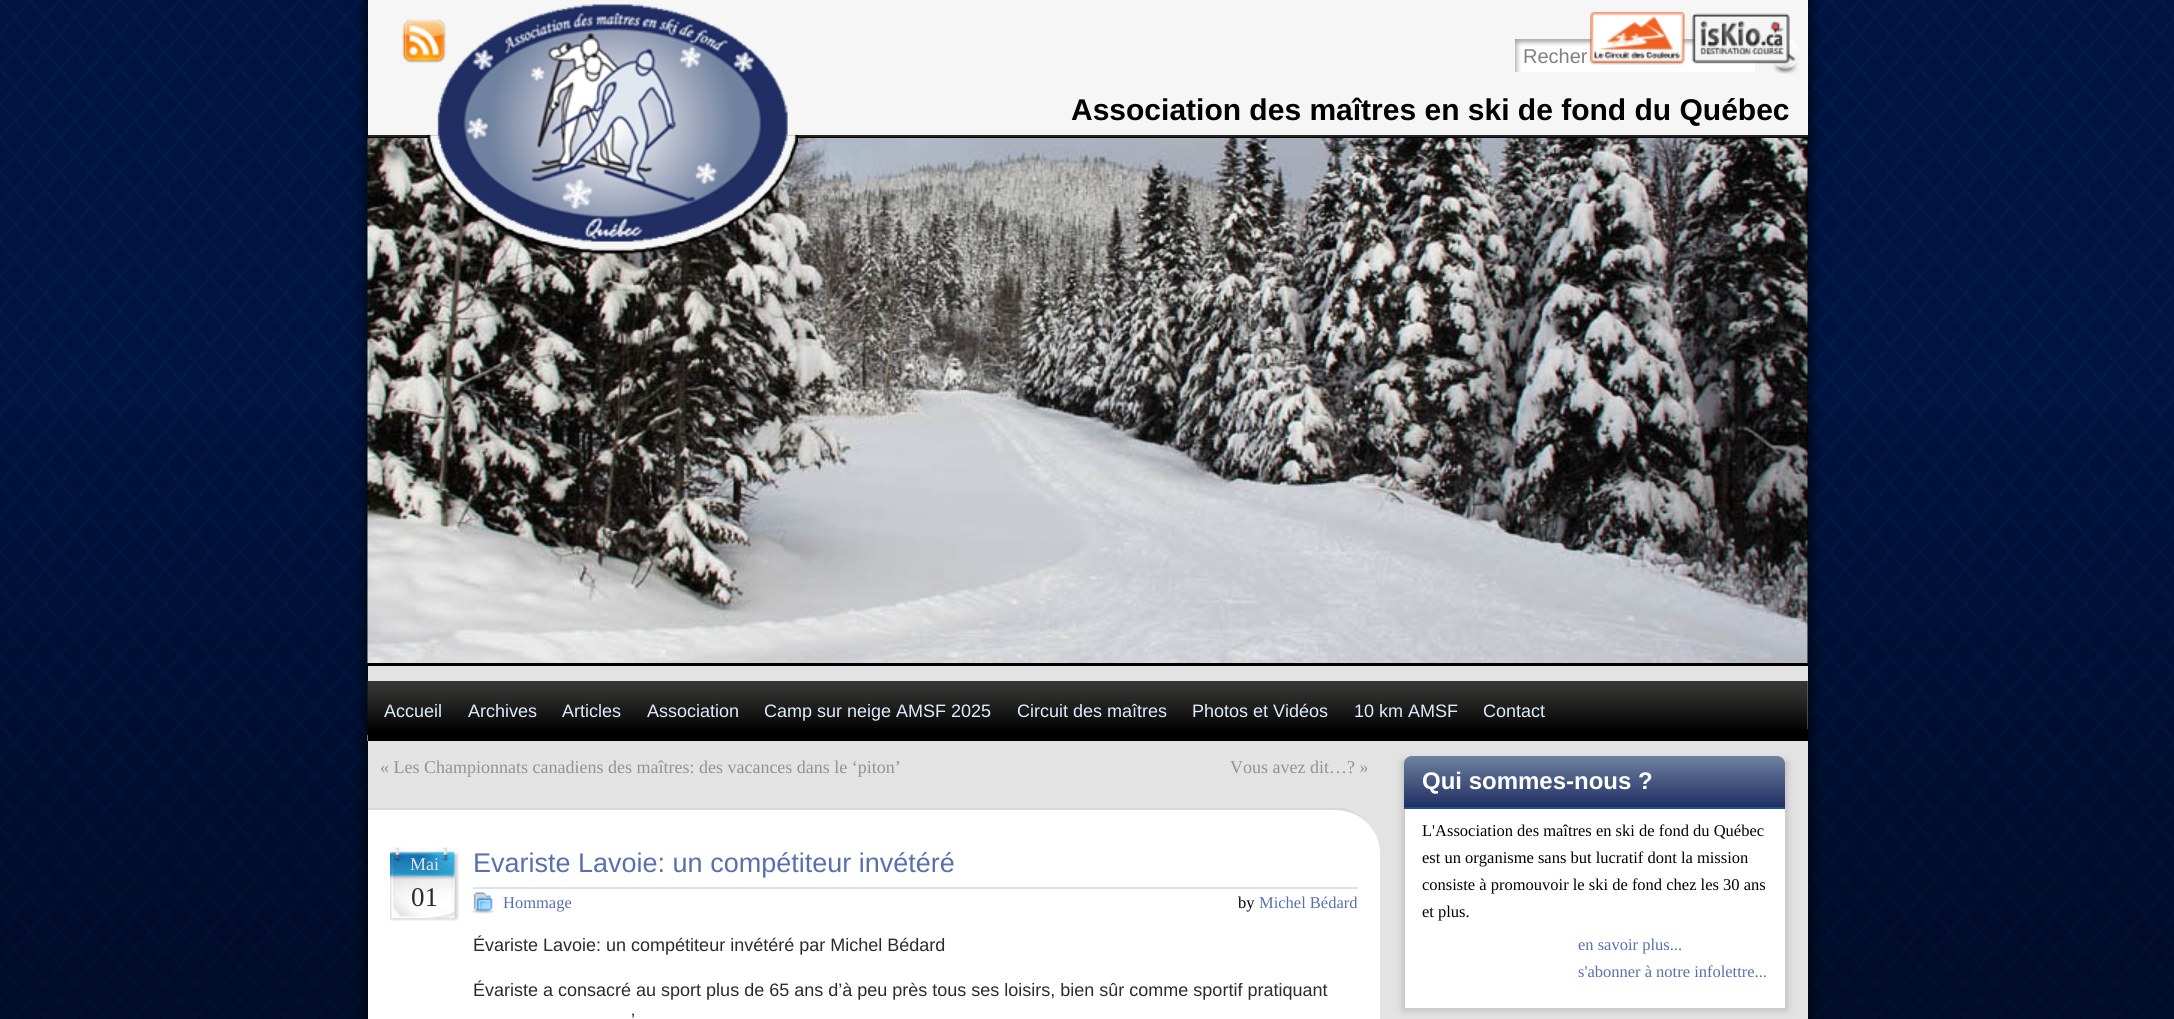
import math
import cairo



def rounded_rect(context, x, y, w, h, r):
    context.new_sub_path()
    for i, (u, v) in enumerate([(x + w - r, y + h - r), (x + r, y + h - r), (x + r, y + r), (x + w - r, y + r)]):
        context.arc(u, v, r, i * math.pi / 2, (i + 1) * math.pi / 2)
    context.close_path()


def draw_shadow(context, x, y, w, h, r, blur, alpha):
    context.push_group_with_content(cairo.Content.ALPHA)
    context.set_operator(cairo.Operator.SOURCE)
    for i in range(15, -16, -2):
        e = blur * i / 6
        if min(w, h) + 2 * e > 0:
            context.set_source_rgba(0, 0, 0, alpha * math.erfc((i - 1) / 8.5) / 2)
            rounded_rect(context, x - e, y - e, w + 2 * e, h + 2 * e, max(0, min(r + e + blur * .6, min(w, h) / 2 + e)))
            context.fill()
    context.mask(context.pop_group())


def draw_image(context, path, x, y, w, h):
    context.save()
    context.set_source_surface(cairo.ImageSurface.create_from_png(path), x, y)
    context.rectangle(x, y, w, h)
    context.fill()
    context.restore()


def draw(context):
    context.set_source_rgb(1, 1, 1)
    context.paint()
    draw_image(context, "images/1.png", 0, 0, 2174, 1019)
    draw_image(context, "images/2.png", 0, 411, 2174, 608)
    context.set_source_rgb(0, 0, 0)
    draw_shadow(context, 368, -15, 1440, 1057, 0, 7.5, 1)
    context.set_source_rgb(246 / 255, 246 / 255, 246 / 255)
    context.rectangle(368, 0, 1440, 135)
    context.fill()
    context.set_source_rgb(34 / 255, 34 / 255, 34 / 255)
    context.rectangle(368, 135, 1440, 2)
    context.fill()
    draw_image(context, "images/3.png", 402, 19, 44, 44)
    draw_image(context, "images/4.png", 1515, 39, 240, 33)
    draw_image(context, "images/5.png", 1772, 39, 28, 35)
    context.set_source_rgb(0, 0, 0)
    context.rectangle(368, 137, 1440, 529)
    context.fill()
    draw_image(context, "images/9.png", 367, 138, 1441, 525)
    draw_image(context, "images/6.png", 427, 4, 371, 250)
    draw_image(context, "images/7.png", 1590, 12, 95, 53)
    draw_image(context, "images/8.png", 1691, 13, 99, 51)
    context.set_source_rgb(128 / 255, 128 / 255, 128 / 255)
    context.rectangle(1807, 681, 1, 48)
    context.fill()
    draw_image(context, "images/10.png", 367, 681, 1441, 60)
    context.set_source_rgb(227 / 255, 227 / 255, 227 / 255)
    context.rectangle(368, 666, 1440, 15)
    context.fill()
    context.set_source_rgb(0, 0, 0)
    context.rectangle(368, 729, 1440, 12)
    context.fill()
    context.set_source_rgb(227 / 255, 227 / 255, 227 / 255)
    context.rectangle(368, 741, 1440, 278)
    context.fill()
    context.set_source_rgb(1, 1, 1)
    context.new_path()
    context.move_to(368, 809)
    context.line_to(1335, 809)
    context.curve_to(1360, 809, 1380, 829, 1380, 854)
    context.line_to(1380, 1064)
    context.line_to(368, 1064)
    context.close_path()
    context.fill()
    context.set_source_rgb(216 / 255, 216 / 255, 216 / 255)
    context.new_path()
    context.move_to(368, 810)
    context.line_to(1335, 810)
    context.curve_to(1359, 810, 1378, 827, 1380, 851)
    context.curve_to(1378, 829, 1362, 812, 1342, 808)
    context.line_to(368, 808)
    context.close_path()
    context.fill()
    draw_image(context, "images/11.png", 390, 847, 69, 74)
    context.set_source_rgb(227 / 255, 227 / 255, 227 / 255)
    context.rectangle(473, 887, 885, 2)
    context.fill()
    draw_image(context, "images/12.png", 472, 892, 22, 22)
    context.set_source_rgb(187 / 255, 187 / 255, 187 / 255)
    draw_shadow(context, 1403, 762, 384, 248, 0, 4, 1)
    context.set_source_rgb(1, 1, 1)
    context.rectangle(1405, 809, 380, 199)
    context.fill()
    context.rectangle(1404, 763, 382, 246)
    context.set_source_rgb(204 / 255, 204 / 255, 204 / 255)
    context.stroke()
    gradient = cairo.LinearGradient(1595, 756, 1595, 807)
    gradient.add_color_stop_rgba(0, 111 / 255, 130 / 255, 159 / 255, 1)
    gradient.add_color_stop_rgba(1, 32 / 255, 46 / 255, 99 / 255, 1)
    context.set_source(gradient)
    context.new_path()
    context.move_to(1412, 756)
    context.line_to(1777, 756)
    context.curve_to(1781.5, 756, 1785, 759.5, 1785, 764)
    context.line_to(1785, 807)
    context.line_to(1404, 807)
    context.line_to(1404, 764)
    context.curve_to(1404, 759.5, 1407.5, 756, 1412, 756)
    context.close_path()
    context.fill()
    context.set_source_rgb(25 / 255, 83 / 255, 146 / 255)
    context.rectangle(1404, 807, 381, 2)
    context.fill()
    context.select_font_face("Liberation Sans")
    context.set_font_size(20)
    context.set_source_rgb(128 / 255, 128 / 255, 128 / 255)
    context.move_to(1523, 63)
    context.show_text("Recher")
    context.select_font_face("Liberation Sans", cairo.FontSlant.NORMAL, cairo.FontWeight.BOLD)
    context.set_font_size(30)
    context.set_source_rgb(0, 0, 0)
    context.move_to(1071, 120)
    context.show_text("Association des maîtres en ski de fond du Québec")
    context.select_font_face("Liberation Sans")
    context.set_font_size(18)
    context.set_source_rgb(223 / 255, 237 / 255, 1)
    context.move_to(384, 717)
    context.show_text("Accueil")
    context.move_to(468, 717)
    context.show_text("Archives")
    context.move_to(562, 717)
    context.show_text("Articles")
    context.move_to(647, 717)
    context.show_text("Association")
    context.move_to(764, 717)
    context.show_text("Camp sur neige AMSF 2025")
    context.move_to(1017, 717)
    context.show_text("Circuit des maîtres")
    context.move_to(1192, 717)
    context.show_text("Photos et Vidéos")
    context.move_to(1354, 717)
    context.show_text("10 km AMSF")
    context.move_to(1483, 717)
    context.show_text("Contact")
    context.select_font_face("Liberation Serif")
    context.set_source_rgb(146 / 255, 146 / 255, 146 / 255)
    context.move_to(380, 773)
    context.show_text("« Les Championnats canadiens des maîtres: des vacances dans le ‘piton’")
    context.move_to(1230, 773)
    context.show_text("Vous avez dit…? »")
    context.set_source_rgb(227 / 255, 227 / 255, 227 / 255)
    context.move_to(410, 870)
    context.show_text("Mai")
    context.set_font_size(27)
    context.set_source_rgb(44 / 255, 43 / 255, 43 / 255)
    context.move_to(411, 906)
    context.show_text("01")
    context.select_font_face("Liberation Sans")
    context.set_source_rgb(87 / 255, 112 / 255, 176 / 255)
    context.move_to(473, 872)
    context.show_text("Evariste Lavoie: un compétiteur invétéré")
    context.select_font_face("Liberation Serif")
    context.set_font_size(16.5)
    context.move_to(503, 908)
    context.show_text("Hommage")
    context.set_source_rgb(0, 0, 0)
    context.move_to(1238, 908)
    context.show_text("by")
    context.set_source_rgb(87 / 255, 112 / 255, 176 / 255)
    context.move_to(1259, 908)
    context.show_text("Michel Bédard")
    context.select_font_face("Liberation Sans")
    context.set_font_size(18)
    context.set_source_rgb(44 / 255, 43 / 255, 43 / 255)
    context.move_to(473, 951)
    context.show_text("Évariste Lavoie: un compétiteur invétéré par Michel Bédard")
    context.move_to(473, 996)
    context.show_text("Évariste a consacré au sport plus de 65 ans d’à peu près tous ses loisirs, bien sûr comme sportif pratiquant")
    context.move_to(631, 1026)
    context.show_text("’")
    context.select_font_face("Liberation Sans", cairo.FontSlant.NORMAL, cairo.FontWeight.BOLD)
    context.set_font_size(24)
    context.set_source_rgb(1, 1, 1)
    context.move_to(1422, 789)
    context.show_text("Qui sommes-nous ?")
    context.select_font_face("Liberation Serif")
    context.set_font_size(16.5)
    context.set_source_rgb(0, 0, 0)
    context.move_to(1422, 836)
    context.show_text("L'Association des maîtres en ski de fond du Québec")
    context.move_to(1422, 863)
    context.show_text("est un organisme sans but lucratif dont la mission")
    context.move_to(1422, 890)
    context.show_text("consiste à promouvoir le ski de fond chez les 30 ans")
    context.move_to(1422, 917)
    context.show_text("et plus.")
    context.set_source_rgb(87 / 255, 112 / 255, 176 / 255)
    context.move_to(1578, 950)
    context.show_text("en savoir plus...")
    context.move_to(1578, 977)
    context.show_text("s'abonner à notre infolettre...")


surface = cairo.ImageSurface(cairo.Format.RGB24, 2174, 1019)
context = cairo.Context(surface)
options = cairo.FontOptions()
options.set_hint_metrics(cairo.HintMetrics.OFF)
options.set_hint_style(cairo.HintStyle.NONE)
context.set_font_options(options)
context.set_miter_limit(4)
draw(context)
surface.write_to_png("out.png")
